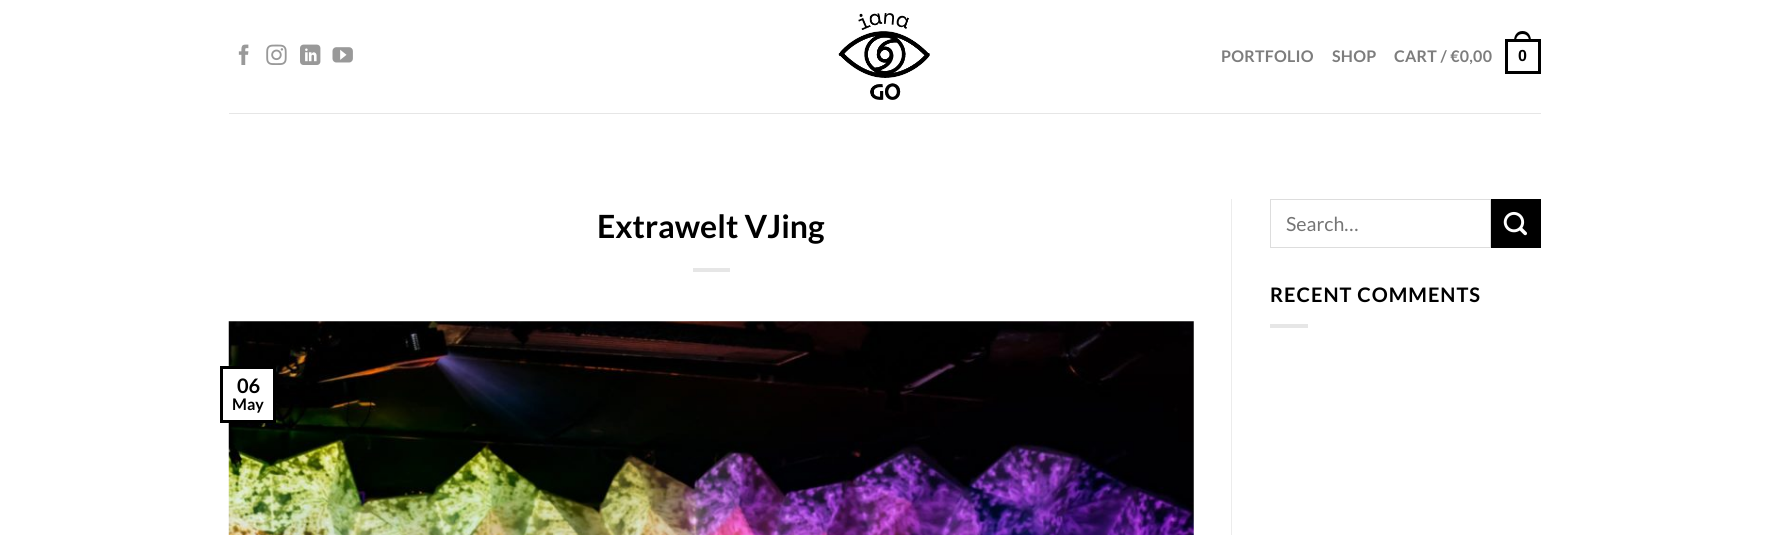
import math
import cairo



def draw_spaced(context, x, y, s, letter, word):
    context.move_to(x, y)
    for ch in s:
        context.show_text(ch)
        context.rel_move_to(letter + word * (ch == ' '), 0)


def draw_image(context, path, x, y, w, h):
    context.save()
    context.set_source_surface(cairo.ImageSurface.create_from_png(path), x, y)
    context.rectangle(x, y, w, h)
    context.fill()
    context.restore()


def draw(context):
    context.set_source_rgb(1, 1, 1)
    context.paint()
    draw_image(context, "images/1.png", 238, 44, 11, 21)
    draw_image(context, "images/2.png", 266, 44, 21, 21)
    draw_image(context, "images/3.png", 300, 44, 21, 21)
    draw_image(context, "images/4.png", 332, 47, 21, 16)
    draw_image(context, "images/5.png", 838, 13, 92, 87)
    context.rectangle(1506.5, 40.5, 33, 32)
    context.set_source_rgb(0, 0, 0)
    context.set_line_width(3)
    context.stroke()
    context.set_fill_rule(cairo.FillRule.EVEN_ODD)
    context.new_path()
    context.move_to(1522.5, 31)
    context.curve_to(1528.5, 31, 1531, 36, 1531, 41)
    context.line_to(1514, 41)
    context.curve_to(1514, 36, 1516.5, 31, 1522.5, 31)
    context.close_path()
    context.move_to(1522.5, 34)
    context.curve_to(1527, 34, 1529, 37.5, 1529, 41)
    context.line_to(1516, 41)
    context.curve_to(1516, 37.5, 1518, 34, 1522.5, 34)
    context.close_path()
    context.fill()
    context.set_source_rgb(230 / 255, 230 / 255, 230 / 255)
    context.rectangle(229, 113, 1312, 1)
    context.fill()
    context.rectangle(693, 268, 37, 4)
    context.fill()
    draw_image(context, "images/6.png", 228, 321, 966, 214)
    context.set_source_rgb(1, 1, 1)
    context.rectangle(228, 369, 45, 51)
    context.fill()
    context.rectangle(221.5, 367.5, 53, 54)
    context.set_source_rgb(0, 0, 0)
    context.stroke()
    context.set_source_rgb(236 / 255, 236 / 255, 236 / 255)
    context.rectangle(1231, 199, 1, 336)
    context.fill()
    context.rectangle(1270.5, 199.5, 220, 48)
    context.set_source_rgb(221 / 255, 221 / 255, 221 / 255)
    context.set_line_width(1)
    context.stroke()
    context.set_source_rgb(0, 0, 0)
    context.rectangle(1491, 199, 50, 49)
    context.fill()
    draw_image(context, "images/7.png", 1503, 211, 24, 25)
    context.set_source_rgb(230 / 255, 230 / 255, 230 / 255)
    context.rectangle(1270, 324, 38, 4)
    context.fill()
    context.select_font_face("Lato", cairo.FontSlant.NORMAL, cairo.FontWeight.BOLD)
    context.set_font_size(16)
    context.set_source_rgb(125 / 255, 125 / 255, 125 / 255)
    draw_spaced(context, 1221, 62, "PORTFOLIO", 0.25, 0)
    draw_spaced(context, 1332, 62, "SHOP", 0.25, 0)
    draw_spaced(context, 1394, 62, "CART / €0,00", 0.25, 0)
    context.select_font_face("Liberation Sans", cairo.FontSlant.NORMAL, cairo.FontWeight.BOLD)
    context.set_source_rgb(0, 0, 0)
    draw_spaced(context, 1518, 61, "0", 0.25, 0)
    context.select_font_face("Lato", cairo.FontSlant.NORMAL, cairo.FontWeight.BOLD)
    context.set_font_size(32)
    context.move_to(597, 238)
    context.show_text("Extrawelt VJing")
    context.set_font_size(20)
    context.move_to(237, 393)
    context.show_text("06")
    context.set_font_size(16)
    context.move_to(232, 410)
    context.show_text("May")
    context.select_font_face("Lato")
    context.set_font_size(19.5)
    context.set_source_rgb(117 / 255, 117 / 255, 117 / 255)
    context.move_to(1286, 231)
    context.show_text("Search…")
    context.select_font_face("Lato", cairo.FontSlant.NORMAL, cairo.FontWeight.BOLD)
    context.set_font_size(20)
    context.set_source_rgb(0, 0, 0)
    draw_spaced(context, 1270, 302, "RECENT COMMENTS", 1, 0)


surface = cairo.ImageSurface(cairo.Format.RGB24, 1768, 535)
context = cairo.Context(surface)
options = cairo.FontOptions()
options.set_hint_metrics(cairo.HintMetrics.OFF)
options.set_hint_style(cairo.HintStyle.NONE)
context.set_font_options(options)
context.set_miter_limit(4)
draw(context)
surface.write_to_png("out.png")
